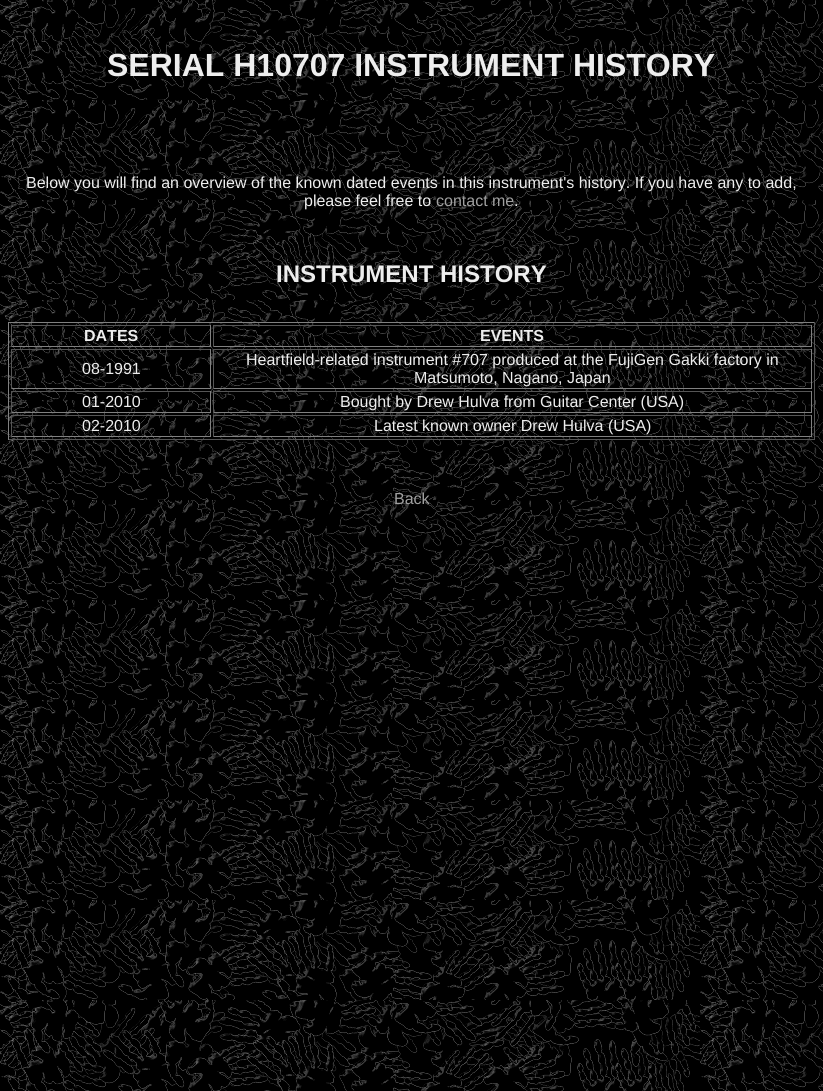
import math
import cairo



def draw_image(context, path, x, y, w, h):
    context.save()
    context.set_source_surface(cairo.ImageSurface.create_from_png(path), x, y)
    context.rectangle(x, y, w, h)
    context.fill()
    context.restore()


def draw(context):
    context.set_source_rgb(1, 1, 1)
    context.paint()
    draw_image(context, "images/1.png", 0, 0, 823, 1091)
    context.set_source_rgb(128 / 255, 128 / 255, 128 / 255)
    context.rectangle(8, 322, 807, 1)
    context.fill()
    context.set_source_rgb(85 / 255, 85 / 255, 85 / 255)
    context.rectangle(814, 322, 1, 118)
    context.fill()
    context.rectangle(8, 439, 807, 1)
    context.fill()
    context.set_source_rgb(128 / 255, 128 / 255, 128 / 255)
    context.rectangle(8, 322, 1, 118)
    context.fill()
    context.set_source_rgb(85 / 255, 85 / 255, 85 / 255)
    context.rectangle(11, 325, 200, 1)
    context.fill()
    context.set_source_rgb(128 / 255, 128 / 255, 128 / 255)
    context.rectangle(210, 325, 1, 22)
    context.fill()
    context.rectangle(11, 346, 200, 1)
    context.fill()
    context.set_source_rgb(85 / 255, 85 / 255, 85 / 255)
    context.rectangle(11, 325, 1, 22)
    context.fill()
    context.rectangle(213, 325, 599, 1)
    context.fill()
    context.set_source_rgb(128 / 255, 128 / 255, 128 / 255)
    context.rectangle(811, 325, 1, 22)
    context.fill()
    context.rectangle(213, 346, 599, 1)
    context.fill()
    context.set_source_rgb(85 / 255, 85 / 255, 85 / 255)
    context.rectangle(213, 325, 1, 22)
    context.fill()
    context.rectangle(11, 349, 200, 1)
    context.fill()
    context.set_source_rgb(128 / 255, 128 / 255, 128 / 255)
    context.rectangle(210, 349, 1, 40)
    context.fill()
    context.rectangle(11, 388, 200, 1)
    context.fill()
    context.set_source_rgb(85 / 255, 85 / 255, 85 / 255)
    context.rectangle(11, 349, 1, 40)
    context.fill()
    context.rectangle(213, 349, 599, 1)
    context.fill()
    context.set_source_rgb(128 / 255, 128 / 255, 128 / 255)
    context.rectangle(811, 349, 1, 40)
    context.fill()
    context.rectangle(213, 388, 599, 1)
    context.fill()
    context.set_source_rgb(85 / 255, 85 / 255, 85 / 255)
    context.rectangle(213, 349, 1, 40)
    context.fill()
    context.rectangle(11, 391, 200, 1)
    context.fill()
    context.set_source_rgb(128 / 255, 128 / 255, 128 / 255)
    context.rectangle(210, 391, 1, 22)
    context.fill()
    context.rectangle(11, 412, 200, 1)
    context.fill()
    context.set_source_rgb(85 / 255, 85 / 255, 85 / 255)
    context.rectangle(11, 391, 1, 22)
    context.fill()
    context.rectangle(213, 391, 599, 1)
    context.fill()
    context.set_source_rgb(128 / 255, 128 / 255, 128 / 255)
    context.rectangle(811, 391, 1, 22)
    context.fill()
    context.rectangle(213, 412, 599, 1)
    context.fill()
    context.set_source_rgb(85 / 255, 85 / 255, 85 / 255)
    context.rectangle(213, 391, 1, 22)
    context.fill()
    context.rectangle(11, 415, 200, 1)
    context.fill()
    context.set_source_rgb(128 / 255, 128 / 255, 128 / 255)
    context.rectangle(210, 415, 1, 22)
    context.fill()
    context.rectangle(11, 436, 200, 1)
    context.fill()
    context.set_source_rgb(85 / 255, 85 / 255, 85 / 255)
    context.rectangle(11, 415, 1, 22)
    context.fill()
    context.rectangle(213, 415, 599, 1)
    context.fill()
    context.set_source_rgb(128 / 255, 128 / 255, 128 / 255)
    context.rectangle(811, 415, 1, 22)
    context.fill()
    context.rectangle(213, 436, 599, 1)
    context.fill()
    context.set_source_rgb(85 / 255, 85 / 255, 85 / 255)
    context.rectangle(213, 415, 1, 22)
    context.fill()
    context.select_font_face("Liberation Sans", cairo.FontSlant.NORMAL, cairo.FontWeight.BOLD)
    context.set_font_size(32)
    context.set_source_rgb(238 / 255, 238 / 255, 238 / 255)
    context.move_to(107, 76)
    context.show_text("SERIAL H10707 INSTRUMENT HISTORY")
    context.select_font_face("Liberation Sans")
    context.set_font_size(16)
    context.move_to(26, 188)
    context.show_text("Below you will find an overview of the known dated events in this instrument's history. If you have any to add,")
    context.move_to(304, 206)
    context.show_text("please feel free to")
    context.set_source_rgb(160 / 255, 160 / 255, 160 / 255)
    context.move_to(436, 206)
    context.show_text("contact me")
    context.set_source_rgb(238 / 255, 238 / 255, 238 / 255)
    context.move_to(514, 206)
    context.show_text(".")
    context.select_font_face("Liberation Sans", cairo.FontSlant.NORMAL, cairo.FontWeight.BOLD)
    context.set_font_size(24)
    context.move_to(276, 282)
    context.show_text("INSTRUMENT HISTORY")
    context.set_font_size(16)
    context.move_to(84, 341)
    context.show_text("DATES")
    context.move_to(480, 341)
    context.show_text("EVENTS")
    context.select_font_face("Liberation Sans")
    context.move_to(82, 374)
    context.show_text("08-1991")
    context.move_to(246, 365)
    context.show_text("Heartfield-related instrument #707 produced at the FujiGen Gakki factory in")
    context.move_to(414, 383)
    context.show_text("Matsumoto, Nagano, Japan")
    context.move_to(82, 407)
    context.show_text("01-2010")
    context.move_to(340, 407)
    context.show_text("Bought by Drew Hulva from Guitar Center (USA)")
    context.move_to(82, 431)
    context.show_text("02-2010")
    context.move_to(374, 431)
    context.show_text("Latest known owner Drew Hulva (USA)")
    context.set_source_rgb(160 / 255, 160 / 255, 160 / 255)
    context.move_to(394, 504)
    context.show_text("Back")


surface = cairo.ImageSurface(cairo.Format.RGB24, 823, 1091)
context = cairo.Context(surface)
options = cairo.FontOptions()
options.set_hint_metrics(cairo.HintMetrics.OFF)
options.set_hint_style(cairo.HintStyle.NONE)
context.set_font_options(options)
context.set_miter_limit(4)
draw(context)
surface.write_to_png("out.png")
